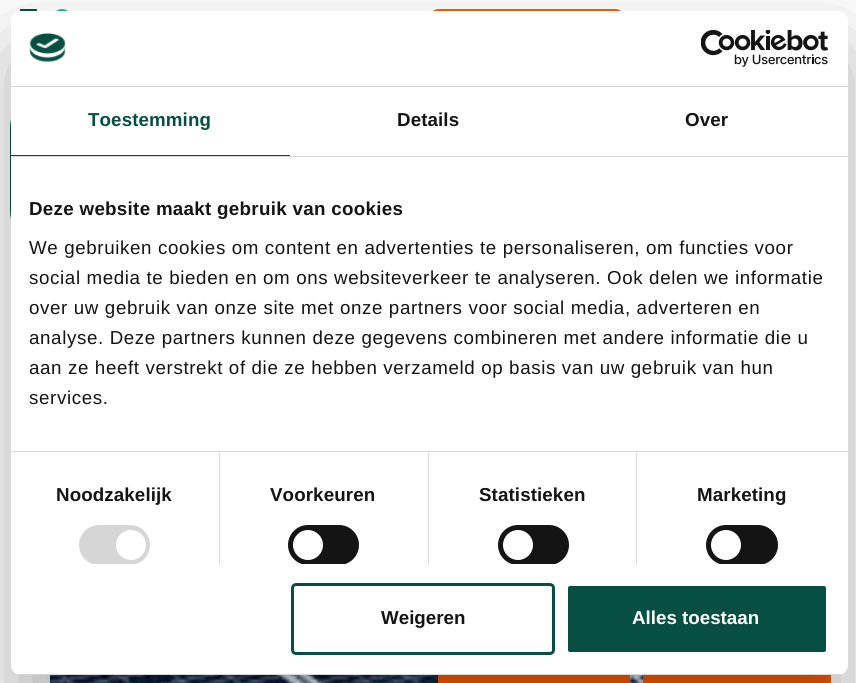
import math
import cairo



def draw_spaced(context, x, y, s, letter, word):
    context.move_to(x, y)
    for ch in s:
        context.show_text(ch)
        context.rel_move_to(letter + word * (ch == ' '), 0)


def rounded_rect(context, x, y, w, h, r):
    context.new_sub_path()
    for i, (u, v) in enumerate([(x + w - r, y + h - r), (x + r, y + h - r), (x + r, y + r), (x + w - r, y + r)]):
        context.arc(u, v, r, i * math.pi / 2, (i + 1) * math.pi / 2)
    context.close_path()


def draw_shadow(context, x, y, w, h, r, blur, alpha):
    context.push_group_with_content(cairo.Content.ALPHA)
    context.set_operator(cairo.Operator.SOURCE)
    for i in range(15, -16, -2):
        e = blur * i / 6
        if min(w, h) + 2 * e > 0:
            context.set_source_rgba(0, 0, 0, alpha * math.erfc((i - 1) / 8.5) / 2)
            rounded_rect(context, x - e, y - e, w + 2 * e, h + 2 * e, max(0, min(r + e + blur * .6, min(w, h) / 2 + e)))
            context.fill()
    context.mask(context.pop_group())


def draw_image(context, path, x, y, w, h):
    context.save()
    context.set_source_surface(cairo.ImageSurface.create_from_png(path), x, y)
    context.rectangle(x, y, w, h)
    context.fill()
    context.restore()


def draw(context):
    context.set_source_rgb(1, 1, 1)
    context.paint()
    draw_image(context, "images/1.png", 20, 9, 48, 3)
    context.set_source_rgb(1, 91 / 255, 0)
    rounded_rect(context, 429, 9, 196, 70, 10)
    context.fill()
    context.set_source_rgb(7 / 255, 79 / 255, 67 / 255)
    rounded_rect(context, 10, 88, 836, 162, 40)
    context.fill()
    draw_image(context, "images/2.png", 50, 675, 593, 8)
    context.set_source_rgb(1, 91 / 255, 0)
    context.rectangle(438, 675, 192, 8)
    context.fill()
    context.rectangle(643, 675, 188, 8)
    context.fill()
    context.set_source_rgb(0, 0, 0)
    draw_shadow(context, 11, 51, 837, 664, 10, 42.5, 0.3)
    context.set_source_rgb(1, 1, 1)
    rounded_rect(context, 11, 11, 837, 664, 10)
    context.fill()
    context.set_source_rgb(214 / 255, 214 / 255, 214 / 255)
    context.rectangle(11, 86, 837, 1)
    context.fill()
    draw_image(context, "images/3.png", 29, 33, 37, 29)
    draw_image(context, "images/4.png", 701, 30, 127, 37)
    context.rectangle(11, 156, 837, 1)
    context.fill()
    context.set_source_rgb(7 / 255, 79 / 255, 67 / 255)
    context.rectangle(11, 155, 279, 1)
    context.fill()
    context.set_source_rgb(214 / 255, 214 / 255, 214 / 255)
    context.rectangle(11, 451, 837, 1)
    context.fill()
    context.rectangle(219, 453, 1, 111)
    context.fill()
    context.save()
    context.rectangle(11, 158, 837, 406)
    context.clip()
    rounded_rect(context, 79, 525, 71, 40, 20)
    context.fill()
    context.restore()
    context.set_source_rgb(1, 1, 1)
    context.arc(131, 545, 15, 0, 2 * math.pi)
    context.fill()
    context.set_source_rgb(214 / 255, 214 / 255, 214 / 255)
    context.rectangle(428, 453, 1, 111)
    context.fill()
    context.save()
    context.rectangle(11, 158, 837, 406)
    context.clip()
    context.set_source_rgb(20 / 255, 20 / 255, 20 / 255)
    rounded_rect(context, 288, 525, 71, 40, 20)
    context.fill()
    context.restore()
    context.set_source_rgb(1, 1, 1)
    context.arc(308, 545, 15, 0, 2 * math.pi)
    context.fill()
    context.set_source_rgb(214 / 255, 214 / 255, 214 / 255)
    context.rectangle(636, 453, 1, 111)
    context.fill()
    context.save()
    context.rectangle(11, 158, 837, 406)
    context.clip()
    context.set_source_rgb(20 / 255, 20 / 255, 20 / 255)
    rounded_rect(context, 498, 525, 71, 40, 20)
    context.fill()
    context.restore()
    context.set_source_rgb(1, 1, 1)
    context.arc(518, 545, 15, 0, 2 * math.pi)
    context.fill()
    context.save()
    context.rectangle(11, 158, 837, 406)
    context.clip()
    context.set_source_rgb(20 / 255, 20 / 255, 20 / 255)
    rounded_rect(context, 706, 525, 72, 40, 20)
    context.fill()
    context.restore()
    context.arc(726, 545, 15, 0, 2 * math.pi)
    context.fill()
    context.save()
    rounded_rect(context, 11, 11, 837, 664, 10)
    context.clip()
    context.set_source_rgb(214 / 255, 214 / 255, 214 / 255)
    context.rectangle(11, 674, 837, 1)
    context.fill()
    context.restore()
    rounded_rect(context, 292.5, 584.5, 261, 69, 3.5)
    context.set_source_rgb(7 / 255, 79 / 255, 67 / 255)
    context.set_line_width(3)
    context.stroke()
    rounded_rect(context, 566.5, 584.5, 261, 69, 3.5)
    context.fill_preserve()
    context.set_source_rgb(1, 1, 1)
    context.stroke()
    context.select_font_face("Liberation Sans", cairo.FontSlant.NORMAL, cairo.FontWeight.BOLD)
    context.set_font_size(18.75)
    context.set_source_rgb(7 / 255, 79 / 255, 67 / 255)
    draw_spaced(context, 88, 126, "Toestemming", 0.1, 0)
    context.set_source_rgb(20 / 255, 20 / 255, 20 / 255)
    draw_spaced(context, 397, 126, "Details", 0.1, 0)
    draw_spaced(context, 685, 126, "Over", 0.1, 0)
    draw_spaced(context, 29, 215, "Deze website maakt gebruik van cookies", 0.3, 0)
    context.select_font_face("Liberation Sans")
    draw_spaced(context, 29, 254, "We gebruiken cookies om content en advertenties te personaliseren, om functies voor", 0.62, 0)
    draw_spaced(context, 29, 284, "social media te bieden en om ons websiteverkeer te analyseren. Ook delen we informatie", 0.62, 0)
    draw_spaced(context, 29, 314, "over uw gebruik van onze site met onze partners voor social media, adverteren en", 0.62, 0)
    draw_spaced(context, 29, 344, "analyse. Deze partners kunnen deze gegevens combineren met andere informatie die u", 0.62, 0)
    draw_spaced(context, 29, 374, "aan ze heeft verstrekt of die ze hebben verzameld op basis van uw gebruik van hun", 0.62, 0)
    draw_spaced(context, 29, 404, "services.", 0.62, 0)
    context.select_font_face("Liberation Sans", cairo.FontSlant.NORMAL, cairo.FontWeight.BOLD)
    draw_spaced(context, 56, 501, "Noodzakelijk", 0.1, 0)
    draw_spaced(context, 270, 501, "Voorkeuren", 0.1, 0)
    draw_spaced(context, 479, 501, "Statistieken", 0.1, 0)
    draw_spaced(context, 697, 501, "Marketing", 0.1, 0)
    context.move_to(381, 624)
    context.show_text("Weigeren")
    context.set_source_rgb(1, 1, 1)
    context.move_to(632, 624)
    context.show_text("Alles toestaan")


surface = cairo.ImageSurface(cairo.Format.RGB24, 856, 683)
context = cairo.Context(surface)
options = cairo.FontOptions()
options.set_hint_metrics(cairo.HintMetrics.OFF)
options.set_hint_style(cairo.HintStyle.NONE)
context.set_font_options(options)
context.set_miter_limit(4)
draw(context)
surface.write_to_png("out.png")
